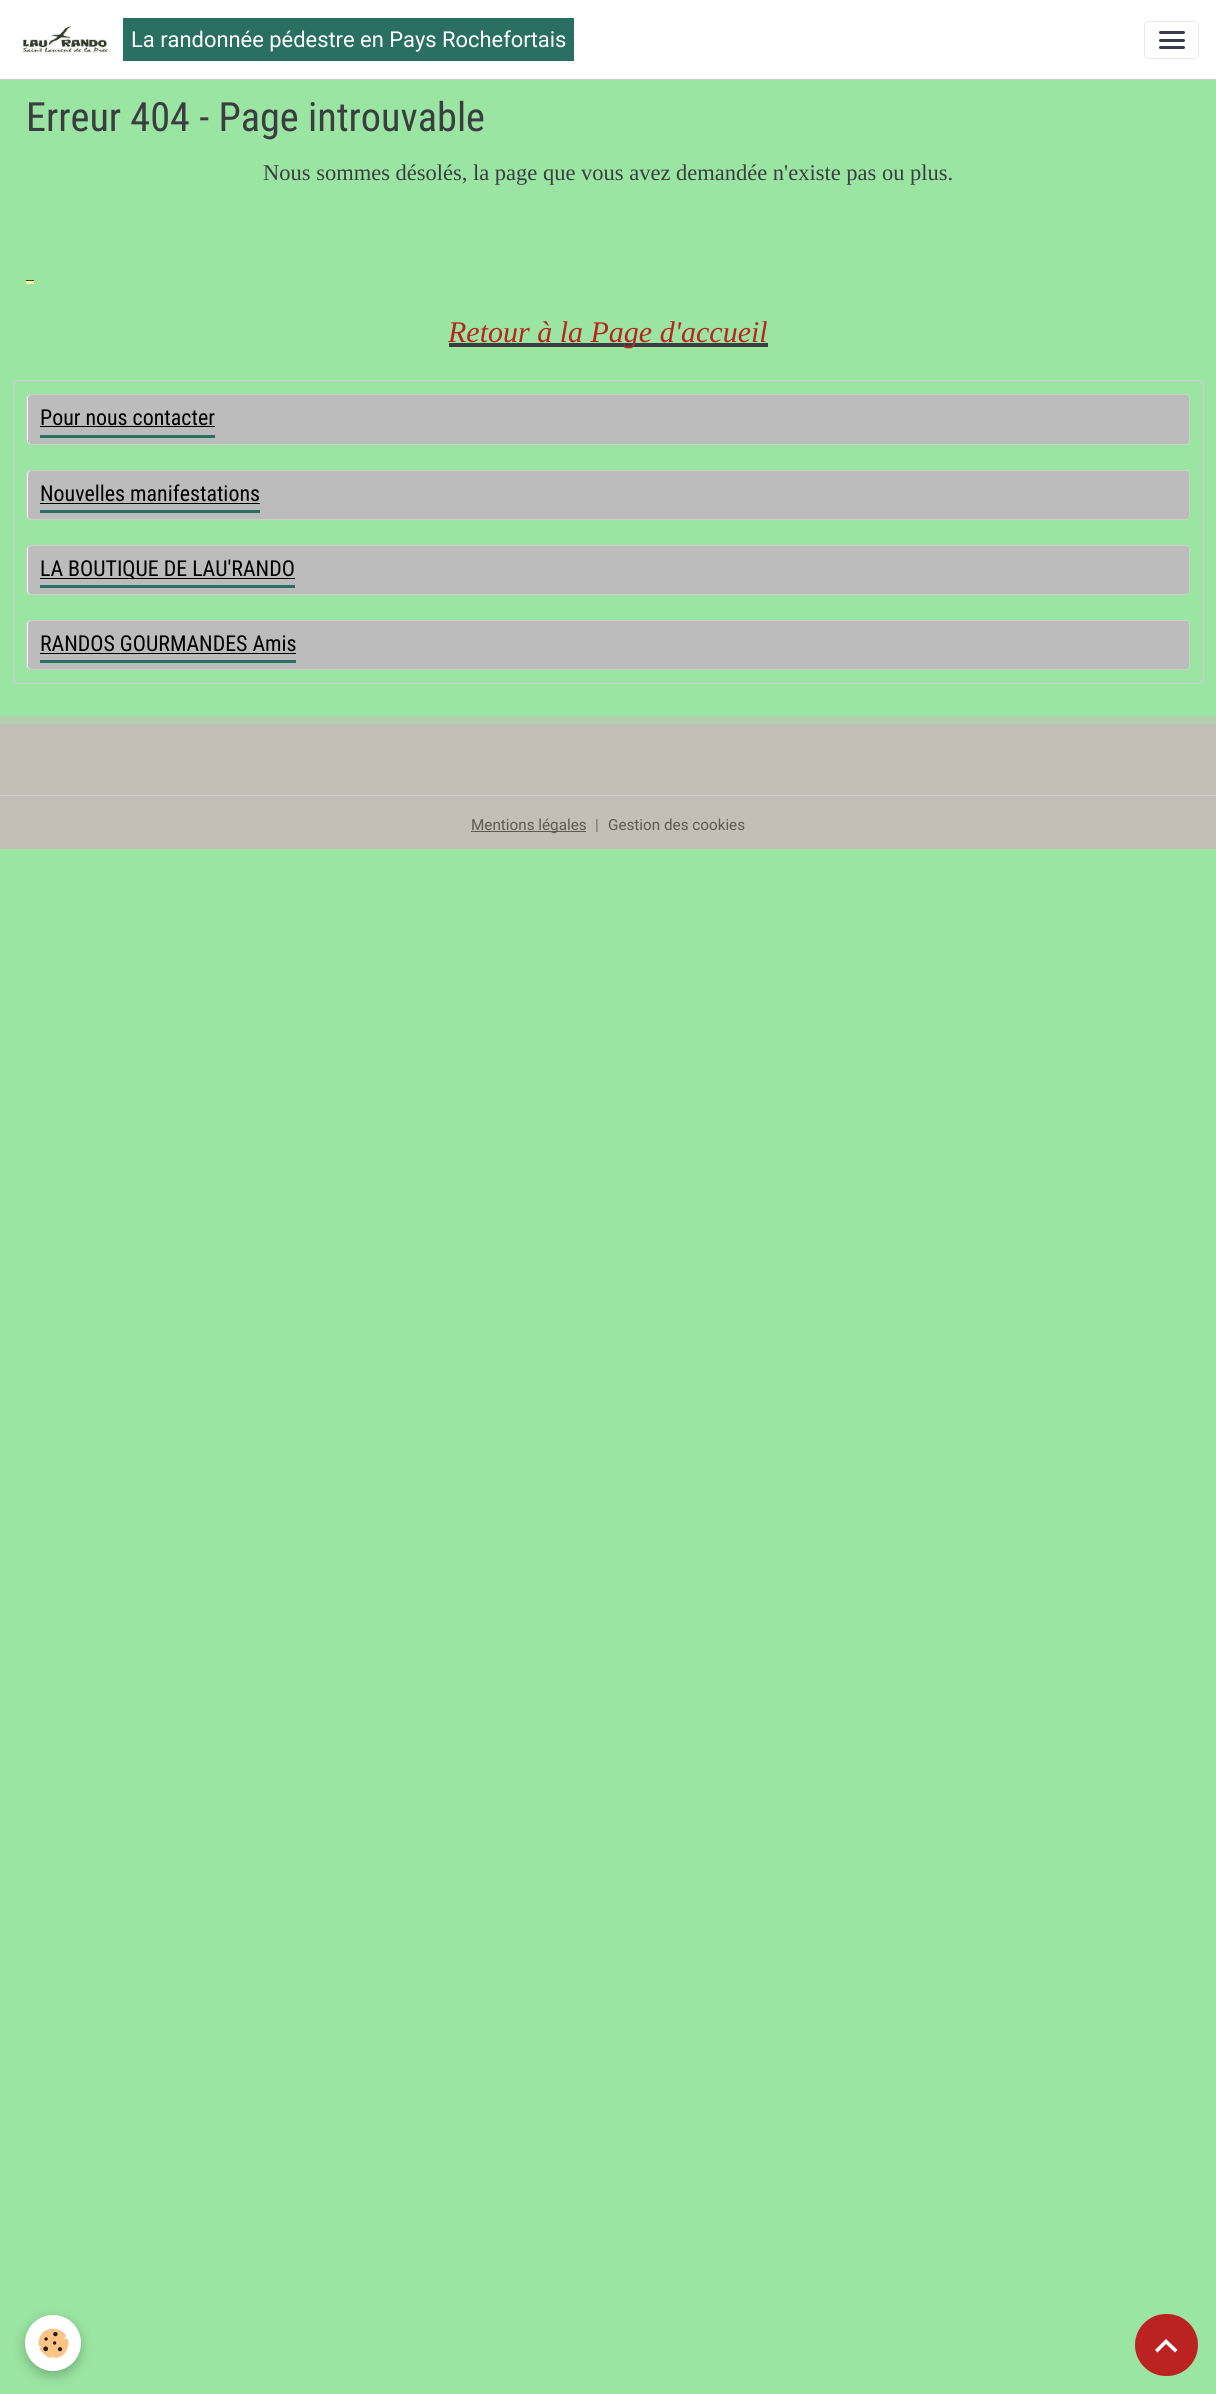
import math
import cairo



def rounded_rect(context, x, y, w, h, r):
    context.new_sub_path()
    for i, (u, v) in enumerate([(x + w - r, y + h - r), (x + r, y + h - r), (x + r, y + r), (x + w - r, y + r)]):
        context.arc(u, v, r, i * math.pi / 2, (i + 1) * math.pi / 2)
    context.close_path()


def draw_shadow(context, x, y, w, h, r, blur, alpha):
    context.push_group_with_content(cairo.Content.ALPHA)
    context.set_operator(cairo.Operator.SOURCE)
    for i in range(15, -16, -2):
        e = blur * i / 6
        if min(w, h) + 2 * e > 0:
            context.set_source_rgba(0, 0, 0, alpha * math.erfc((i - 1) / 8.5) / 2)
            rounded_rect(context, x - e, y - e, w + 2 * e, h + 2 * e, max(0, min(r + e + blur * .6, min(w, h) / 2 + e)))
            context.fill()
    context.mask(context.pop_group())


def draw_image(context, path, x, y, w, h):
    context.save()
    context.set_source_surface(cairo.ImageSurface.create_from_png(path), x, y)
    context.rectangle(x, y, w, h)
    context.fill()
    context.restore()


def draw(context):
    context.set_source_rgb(154 / 255, 229 / 255, 161 / 255)
    context.paint()
    context.set_source_rgb(1, 1, 1)
    context.rectangle(0, 0, 1216, 79)
    context.fill()
    context.set_source_rgb(207 / 255, 205 / 255, 201 / 255)
    context.rectangle(0, 79, 1216, 1)
    context.fill()
    draw_image(context, "images/1.png", 21, 25, 89, 29)
    context.set_source_rgb(41 / 255, 112 / 255, 99 / 255)
    context.rectangle(123, 18, 451, 43)
    context.fill()
    rounded_rect(context, 1144.5, 21.5, 54, 37, 4.5)
    context.set_source_rgb(235 / 255, 235 / 255, 238 / 255)
    context.set_line_width(1)
    context.stroke()
    context.set_source_rgb(58 / 255, 58 / 255, 80 / 255)
    rounded_rect(context, 1159, 31, 26, 3, 1.5)
    context.fill()
    rounded_rect(context, 1159, 39, 26, 3, 1.5)
    context.fill()
    rounded_rect(context, 1159, 46, 26, 3, 1.5)
    context.fill()
    context.set_source_rgb(59 / 255, 61 / 255, 66 / 255)
    context.rectangle(26, 280, 8, 1)
    context.fill()
    context.set_source_rgb(1, 1, 153 / 255)
    context.rectangle(26, 281, 8, 3)
    context.fill()
    context.set_source_rgb(59 / 255, 61 / 255, 66 / 255)
    context.rectangle(449, 343, 319, 4)
    context.fill()
    rounded_rect(context, 13.5, 380.5, 1190, 303, 4.5)
    context.set_source_rgb(207 / 255, 205 / 255, 201 / 255)
    context.stroke()
    context.set_source_rgb(1, 1, 1)
    rounded_rect(context, 26.5, 394.5, 1163, 50, 4.5)
    context.fill_preserve()
    context.set_source_rgb(207 / 255, 205 / 255, 201 / 255)
    context.stroke()
    context.set_source_rgb(188 / 255, 188 / 255, 188 / 255)
    rounded_rect(context, 28, 395, 1161, 49, 3)
    context.fill()
    context.set_source_rgb(41 / 255, 112 / 255, 99 / 255)
    context.rectangle(40, 435, 175, 3)
    context.fill()
    context.set_source_rgb(0, 0, 0)
    context.rectangle(40, 426, 175, 1)
    context.fill()
    context.set_source_rgb(1, 1, 1)
    rounded_rect(context, 26.5, 470.5, 1163, 49, 4.5)
    context.fill_preserve()
    context.set_source_rgb(207 / 255, 205 / 255, 201 / 255)
    context.stroke()
    context.set_source_rgb(188 / 255, 188 / 255, 188 / 255)
    rounded_rect(context, 28, 471, 1161, 48, 3)
    context.fill()
    context.set_source_rgb(41 / 255, 112 / 255, 99 / 255)
    context.rectangle(40, 510, 220, 3)
    context.fill()
    context.set_source_rgb(0, 0, 0)
    context.rectangle(40, 503, 220, 1)
    context.fill()
    context.set_source_rgb(1, 1, 1)
    rounded_rect(context, 26.5, 545.5, 1163, 49, 4.5)
    context.fill_preserve()
    context.set_source_rgb(207 / 255, 205 / 255, 201 / 255)
    context.stroke()
    context.set_source_rgb(188 / 255, 188 / 255, 188 / 255)
    rounded_rect(context, 28, 546, 1161, 48, 3)
    context.fill()
    context.set_source_rgb(41 / 255, 112 / 255, 99 / 255)
    context.rectangle(40, 585, 255, 3)
    context.fill()
    context.set_source_rgb(0, 0, 0)
    context.rectangle(40, 578, 255, 1)
    context.fill()
    context.set_source_rgb(1, 1, 1)
    rounded_rect(context, 26.5, 620.5, 1163, 49, 4.5)
    context.fill_preserve()
    context.set_source_rgb(207 / 255, 205 / 255, 201 / 255)
    context.stroke()
    context.set_source_rgb(188 / 255, 188 / 255, 188 / 255)
    rounded_rect(context, 28, 621, 1161, 48, 3)
    context.fill()
    context.set_source_rgb(41 / 255, 112 / 255, 99 / 255)
    context.rectangle(40, 660, 256, 3)
    context.fill()
    context.set_source_rgb(0, 0, 0)
    context.rectangle(40, 653, 256, 1)
    context.fill()
    context.set_source_rgb(195 / 255, 191 / 255, 182 / 255)
    context.rectangle(0, 724, 1216, 125)
    context.fill()
    context.set_source_rgb(179 / 255, 207 / 255, 173 / 255)
    context.rectangle(0, 716, 1216, 8)
    context.fill()
    context.set_source_rgb(207 / 255, 206 / 255, 202 / 255)
    context.rectangle(0, 795, 1216, 1)
    context.fill()
    context.set_source_rgb(95 / 255, 90 / 255, 78 / 255)
    context.rectangle(471, 831, 115, 1)
    context.fill()
    context.set_source_rgb(0, 0, 0)
    draw_shadow(context, 25, 2319, 56, 56, 28, 6, 0.24)
    context.set_source_rgb(1, 1, 1)
    context.arc(53, 2343, 28, 0, 2 * math.pi)
    context.fill()
    draw_image(context, "images/2.png", 38, 2328, 31, 30)
    context.set_source_rgb(187 / 255, 35 / 255, 35 / 255)
    rounded_rect(context, 1135, 2314, 63, 62, 31)
    context.fill()
    context.set_source_rgb(1, 1, 1)
    context.new_path()
    context.move_to(1166, 2339)
    context.line_to(1177.5, 2350)
    context.line_to(1175, 2352.5)
    context.line_to(1166, 2344)
    context.line_to(1157.5, 2352.5)
    context.line_to(1155, 2350)
    context.close_path()
    context.fill()
    context.select_font_face("Roboto")
    context.set_font_size(21.9)
    context.move_to(131, 47)
    context.show_text("La randonnée pédestre en Pays Rochefortais")
    context.select_font_face("Roboto Condensed")
    context.set_font_size(40.25)
    context.set_source_rgb(59 / 255, 61 / 255, 66 / 255)
    context.move_to(26, 131)
    context.show_text("Erreur 404 - Page introuvable")
    context.select_font_face("Liberation Serif")
    context.set_font_size(22.5)
    context.move_to(263, 180)
    context.show_text("Nous sommes désolés, la page que vous avez demandée n'existe pas ou plus.")
    context.select_font_face("Liberation Serif", cairo.FontSlant.ITALIC)
    context.set_font_size(30)
    context.set_source_rgb(187 / 255, 35 / 255, 35 / 255)
    context.move_to(448, 342)
    context.show_text("Retour à la Page d'accueil")
    context.select_font_face("Roboto Condensed")
    context.set_font_size(21.9)
    context.set_source_rgb(0, 0, 0)
    context.move_to(40, 425)
    context.show_text("Pour nous contacter")
    context.move_to(40, 501)
    context.show_text("Nouvelles manifestations")
    context.move_to(40, 576)
    context.show_text("LA BOUTIQUE DE LAU'RANDO")
    context.move_to(40, 651)
    context.show_text("RANDOS GOURMANDES Amis")
    context.select_font_face("Roboto")
    context.set_font_size(15.25)
    context.set_source_rgb(95 / 255, 90 / 255, 78 / 255)
    context.move_to(471, 830)
    context.show_text("Mentions légales")
    context.set_source_rgb(115 / 255, 110 / 255, 99 / 255)
    context.move_to(595, 830)
    context.show_text("|")
    context.set_source_rgb(95 / 255, 90 / 255, 78 / 255)
    context.move_to(608, 830)
    context.show_text("Gestion des cookies")


surface = cairo.ImageSurface(cairo.Format.RGB24, 1216, 2394)
context = cairo.Context(surface)
options = cairo.FontOptions()
options.set_hint_metrics(cairo.HintMetrics.OFF)
options.set_hint_style(cairo.HintStyle.NONE)
context.set_font_options(options)
context.set_miter_limit(4)
draw(context)
surface.write_to_png("out.png")
